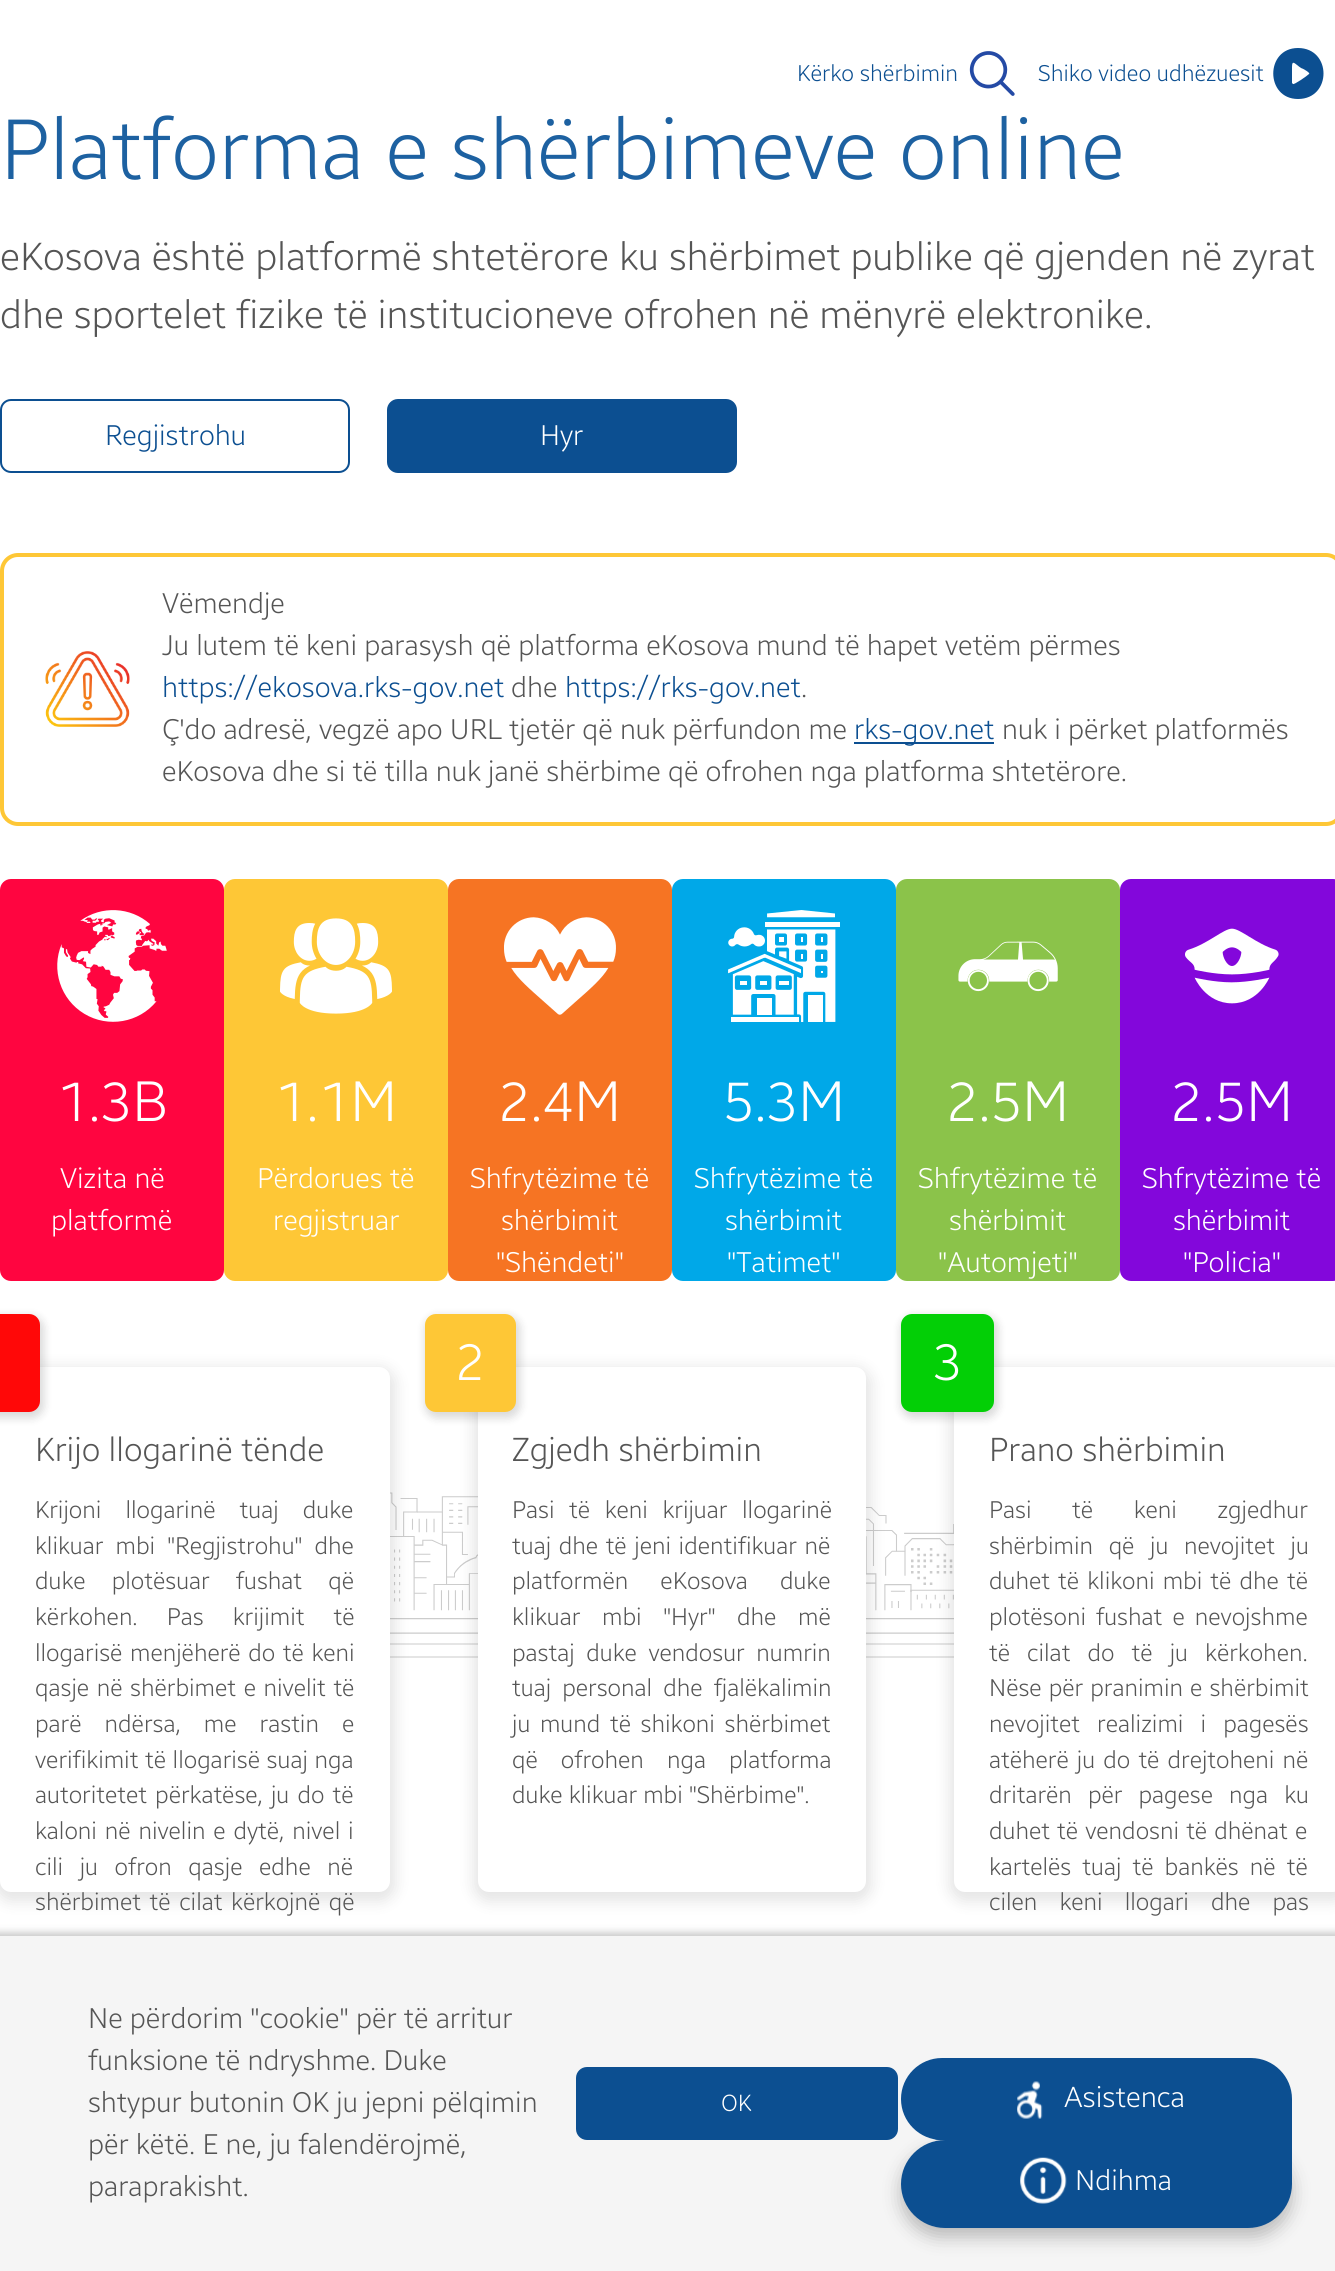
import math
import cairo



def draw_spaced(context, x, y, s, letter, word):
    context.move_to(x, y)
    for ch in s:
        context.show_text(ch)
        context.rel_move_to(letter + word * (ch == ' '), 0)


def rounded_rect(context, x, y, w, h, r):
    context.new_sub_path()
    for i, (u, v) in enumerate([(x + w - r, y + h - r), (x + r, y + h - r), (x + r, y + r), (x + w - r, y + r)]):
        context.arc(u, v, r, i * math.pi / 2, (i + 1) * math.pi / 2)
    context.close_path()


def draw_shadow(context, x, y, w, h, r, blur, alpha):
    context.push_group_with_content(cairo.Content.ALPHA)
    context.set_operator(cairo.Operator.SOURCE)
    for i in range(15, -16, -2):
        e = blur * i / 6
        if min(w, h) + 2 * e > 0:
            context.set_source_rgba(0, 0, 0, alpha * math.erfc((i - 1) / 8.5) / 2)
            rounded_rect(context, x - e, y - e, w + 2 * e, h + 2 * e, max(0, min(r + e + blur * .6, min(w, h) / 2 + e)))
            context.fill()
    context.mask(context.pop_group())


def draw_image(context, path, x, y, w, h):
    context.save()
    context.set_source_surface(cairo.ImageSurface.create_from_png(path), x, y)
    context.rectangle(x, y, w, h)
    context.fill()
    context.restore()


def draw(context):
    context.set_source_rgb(1, 1, 1)
    context.paint()
    draw_image(context, "images/1.png", 969, 51, 46, 45)
    context.set_source_rgb(12 / 255, 79 / 255, 145 / 255)
    context.new_path()
    context.move_to(1309, 74)
    context.curve_to(1307, 76, 1294, 85, 1293, 84)
    context.line_to(1292, 83)
    context.line_to(1292, 67)
    context.curve_to(1292, 59, 1295, 64, 1301, 68)
    context.curve_to(1302, 68, 1311, 73, 1309, 74)
    context.close_path()
    context.move_to(1298, 48)
    context.curve_to(1265, 48, 1265, 99, 1298, 99)
    context.curve_to(1332, 99, 1332, 48, 1298, 48)
    context.close_path()
    context.fill()
    rounded_rect(context, 1, 400, 348, 72, 10)
    context.stroke()
    rounded_rect(context, 388, 400, 348, 72, 10)
    context.fill_preserve()
    context.stroke()
    rounded_rect(context, 2, 555, 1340, 269, 16)
    context.set_source_rgb(254 / 255, 199 / 255, 54 / 255)
    context.set_line_width(4)
    context.stroke()
    draw_image(context, "images/2.png", 45, 651, 85, 76)
    context.set_source_rgb(12 / 255, 79 / 255, 145 / 255)
    context.rectangle(854, 742, 140, 2)
    context.fill()
    context.set_source_rgb(1, 5 / 255, 64 / 255)
    rounded_rect(context, 0, 879, 224, 402, 11)
    context.fill()
    draw_image(context, "images/3.png", 57, 910, 110, 112)
    context.set_source_rgb(254 / 255, 199 / 255, 54 / 255)
    rounded_rect(context, 224, 879, 224, 402, 11)
    context.fill()
    draw_image(context, "images/4.png", 280, 918, 112, 96)
    context.set_source_rgb(246 / 255, 116 / 255, 35 / 255)
    rounded_rect(context, 448, 879, 224, 402, 11)
    context.fill()
    draw_image(context, "images/5.png", 504, 917, 112, 98)
    context.set_source_rgb(0, 168 / 255, 232 / 255)
    rounded_rect(context, 672, 879, 224, 402, 11)
    context.fill()
    draw_image(context, "images/6.png", 728, 910, 112, 112)
    context.set_source_rgb(139 / 255, 195 / 255, 74 / 255)
    rounded_rect(context, 896, 879, 224, 402, 11)
    context.fill()
    draw_image(context, "images/7.png", 958, 941, 100, 51)
    context.set_source_rgb(131 / 255, 7 / 255, 219 / 255)
    rounded_rect(context, 1120, 879, 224, 402, 11)
    context.fill()
    draw_image(context, "images/8.png", 1185, 928, 94, 76)
    draw_image(context, "images/9.png", 390, 1492, 564, 166)
    context.set_source_rgb(0, 0, 0)
    draw_shadow(context, -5, 1367, 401, 535, 16, 7, 0.1)
    context.set_source_rgb(1, 1, 1)
    rounded_rect(context, 0, 1367, 390, 525, 11)
    context.fill()
    context.set_source_rgb(0, 0, 0)
    draw_shadow(context, -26, 1316, 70, 102, 12, 4.5, 0.15)
    context.set_source_rgb(1, 8 / 255, 8 / 255)
    rounded_rect(context, -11, 1314, 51, 98, 11)
    context.fill()
    context.set_source_rgb(0, 0, 0)
    draw_shadow(context, 473, 1367, 399, 535, 16, 7, 0.1)
    context.set_source_rgb(1, 1, 1)
    rounded_rect(context, 478, 1367, 388, 525, 11)
    context.fill()
    context.set_source_rgb(0, 0, 0)
    draw_shadow(context, 425, 1316, 95, 102, 12, 4.5, 0.15)
    context.set_source_rgb(254 / 255, 199 / 255, 54 / 255)
    rounded_rect(context, 425, 1314, 91, 98, 11)
    context.fill()
    context.set_source_rgb(0, 0, 0)
    draw_shadow(context, 949, 1367, 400, 535, 16, 7, 0.1)
    context.set_source_rgb(1, 1, 1)
    rounded_rect(context, 954, 1367, 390, 525, 11)
    context.fill()
    context.set_source_rgb(0, 0, 0)
    draw_shadow(context, 901, 1316, 97, 102, 12, 4.5, 0.15)
    context.set_source_rgb(3 / 255, 207 / 255, 6 / 255)
    rounded_rect(context, 901, 1314, 93, 98, 11)
    context.fill()
    context.set_source_rgb(0, 0, 0)
    draw_shadow(context, -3, 1932, 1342, 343, 0, 3.5, 0.2)
    context.set_source_rgb(245 / 255, 245 / 255, 245 / 255)
    context.rectangle(0, 1936, 1335, 335)
    context.fill()
    context.set_source_rgb(12 / 255, 79 / 255, 145 / 255)
    rounded_rect(context, 577, 2068, 320, 71, 10)
    context.fill_preserve()
    context.set_line_width(2)
    context.stroke()
    rounded_rect(context, 929, 2068, 318, 71, 10)
    context.stroke()
    context.set_source_rgb(0, 0, 0)
    draw_shadow(context, 901, 2149, 391, 88, 44, 9, 0.25)
    context.set_source_rgb(12 / 255, 79 / 255, 145 / 255)
    context.new_path()
    context.move_to(942, 2060)
    context.line_to(1251, 2060)
    context.curve_to(1272.5, 2060, 1290, 2077.5, 1290, 2099)
    context.line_to(1290, 2138)
    context.line_to(942, 2138)
    context.curve_to(920.5, 2138, 903, 2120.5, 903, 2099)
    context.curve_to(903, 2077.5, 920.5, 2060, 942, 2060)
    context.close_path()
    context.fill_preserve()
    context.set_line_width(4)
    context.stroke()
    draw_image(context, "images/10.png", 1017, 2081, 26, 38)
    context.new_path()
    context.move_to(945, 2142)
    context.line_to(1290, 2142)
    context.line_to(1290, 2184)
    context.curve_to(1290, 2207, 1271, 2226, 1248, 2226)
    context.line_to(945, 2226)
    context.curve_to(922, 2226, 903, 2207, 903, 2184)
    context.curve_to(903, 2161, 922, 2142, 945, 2142)
    context.close_path()
    context.fill_preserve()
    context.stroke()
    draw_image(context, "images/11.png", 1020, 2157, 47, 47)
    context.select_font_face("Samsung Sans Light")
    context.set_font_size(22.4)
    context.move_to(797, 81)
    context.show_text("Kërko shërbimin")
    context.move_to(1038, 81)
    context.show_text("Shiko video udhëzuesit")
    context.set_font_size(84)
    context.set_source_rgb(29 / 255, 97 / 255, 161 / 255)
    context.move_to(0, 179)
    context.show_text("Platforma e shërbimeve online")
    context.set_font_size(38.5)
    context.set_source_rgb(85 / 255, 85 / 255, 85 / 255)
    context.move_to(0, 270)
    context.show_text("eKosova është platformë shtetërore ku shërbimet publike që gjenden në zyrat")
    context.move_to(0, 328)
    context.show_text("dhe sportelet fizike të institucioneve ofrohen në mënyrë elektronike.")
    context.set_font_size(28)
    context.set_source_rgb(12 / 255, 79 / 255, 145 / 255)
    context.move_to(105, 445)
    context.show_text("Regjistrohu")
    context.set_source_rgb(1, 1, 1)
    context.move_to(540, 445)
    context.show_text("Hyr")
    context.set_source_rgb(85 / 255, 85 / 255, 85 / 255)
    context.move_to(162, 613)
    context.show_text("Vëmendje")
    context.move_to(162, 655)
    context.show_text("Ju lutem të keni parasysh që platforma eKosova mund të hapet vetëm përmes")
    context.set_source_rgb(12 / 255, 79 / 255, 145 / 255)
    context.move_to(162, 697)
    context.show_text("https://ekosova.rks-gov.net")
    context.set_source_rgb(85 / 255, 85 / 255, 85 / 255)
    context.move_to(511, 697)
    context.show_text("dhe")
    context.set_source_rgb(12 / 255, 79 / 255, 145 / 255)
    context.move_to(565, 697)
    context.show_text("https://rks-gov.net")
    context.set_source_rgb(85 / 255, 85 / 255, 85 / 255)
    context.move_to(801, 697)
    context.show_text(".")
    context.move_to(162, 739)
    context.show_text("Ç'do adresë, vegzë apo URL tjetër që nuk përfundon me")
    context.set_source_rgb(12 / 255, 79 / 255, 145 / 255)
    context.move_to(854, 739)
    context.show_text("rks-gov.net")
    context.set_source_rgb(85 / 255, 85 / 255, 85 / 255)
    context.move_to(1002, 739)
    context.show_text("nuk i përket platformës")
    context.move_to(162, 781)
    context.show_text("eKosova dhe si të tilla nuk janë shërbime që ofrohen nga platforma shtetërore.")
    context.set_font_size(56)
    context.set_source_rgb(1, 1, 1)
    context.move_to(57, 1121)
    context.show_text("1.3B")
    context.set_font_size(28)
    context.move_to(60, 1188)
    context.show_text("Vizita në")
    context.move_to(51, 1230)
    context.show_text("platformë")
    context.set_font_size(56)
    context.move_to(275, 1121)
    context.show_text("1.1M")
    context.set_font_size(28)
    context.move_to(257, 1188)
    context.show_text("Përdorues të")
    context.move_to(273, 1230)
    context.show_text("regjistruar")
    context.set_font_size(56)
    context.move_to(499, 1121)
    context.show_text("2.4M")
    context.set_font_size(28)
    context.move_to(470, 1188)
    context.show_text("Shfrytëzime të")
    context.move_to(501, 1230)
    context.show_text("shërbimit")
    context.move_to(496, 1272)
    context.show_text("\"Shëndeti\"")
    context.set_font_size(56)
    context.move_to(723, 1121)
    context.show_text("5.3M")
    context.set_font_size(28)
    context.move_to(694, 1188)
    context.show_text("Shfrytëzime të")
    context.move_to(725, 1230)
    context.show_text("shërbimit")
    context.move_to(727, 1272)
    context.show_text("\"Tatimet\"")
    context.set_font_size(56)
    context.move_to(947, 1121)
    context.show_text("2.5M")
    context.set_font_size(28)
    context.move_to(918, 1188)
    context.show_text("Shfrytëzime të")
    context.move_to(949, 1230)
    context.show_text("shërbimit")
    context.move_to(938, 1272)
    context.show_text("\"Automjeti\"")
    context.set_font_size(56)
    context.move_to(1171, 1121)
    context.show_text("2.5M")
    context.set_font_size(28)
    context.move_to(1142, 1188)
    context.show_text("Shfrytëzime të")
    context.move_to(1173, 1230)
    context.show_text("shërbimit")
    context.move_to(1183, 1272)
    context.show_text("\"Policia\"")
    context.set_font_size(32.75)
    context.set_source_rgb(85 / 255, 85 / 255, 85 / 255)
    context.move_to(35, 1461)
    context.show_text("Krijo llogarinë tënde")
    context.set_font_size(23.75)
    draw_spaced(context, 35, 1518, "Krijoni llogarinë tuaj duke", 0, 18)
    draw_spaced(context, 35, 1554, "klikuar mbi \"Regjistrohu\" dhe", 0, 6)
    draw_spaced(context, 35, 1589, "duke plotësuar fushat që", 0, 20)
    draw_spaced(context, 35, 1625, "kërkohen. Pas krijimit të", 0, 23)
    draw_spaced(context, 35, 1661, "llogarisë menjëherë do të keni", 0, 1.5)
    draw_spaced(context, 35, 1696, "qasje në shërbimet e nivelit të", 0, 1.5)
    draw_spaced(context, 35, 1732, "parë ndërsa, me rastin e", 0, 17)
    draw_spaced(context, 35, 1768, "verifikimit të llogarisë suaj nga", 0, 0.5)
    draw_spaced(context, 35, 1803, "autoritetet përkatëse, ju do të", 0, 2)
    draw_spaced(context, 35, 1839, "kaloni në nivelin e dytë, nivel i", 0, 1.75)
    draw_spaced(context, 35, 1875, "cili ju ofron qasje edhe në", 0, 10.5)
    draw_spaced(context, 35, 1910, "shërbimet të cilat kërkojnë që", 0, 2.5)
    context.set_font_size(52)
    context.set_source_rgb(1, 1, 1)
    context.move_to(456, 1380)
    context.show_text("2")
    context.set_font_size(32.75)
    context.set_source_rgb(85 / 255, 85 / 255, 85 / 255)
    context.move_to(512, 1461)
    context.show_text("Zgjedh shërbimin")
    context.set_font_size(23.75)
    draw_spaced(context, 512, 1518, "Pasi të keni krijuar llogarinë", 0, 8.5)
    draw_spaced(context, 512, 1554, "tuaj dhe të jeni identifikuar në", 0, 1.5)
    draw_spaced(context, 512, 1589, "platformën eKosova duke", 0, 26)
    draw_spaced(context, 512, 1625, "klikuar mbi \"Hyr\" dhe më", 0, 15.5)
    draw_spaced(context, 512, 1661, "pastaj duke vendosur numrin", 0, 5.5)
    draw_spaced(context, 512, 1696, "tuaj personal dhe fjalëkalimin", 0, 5)
    draw_spaced(context, 512, 1732, "ju mund të shikoni shërbimet", 0, 3.5)
    draw_spaced(context, 512, 1768, "që ofrohen nga platforma", 0, 17)
    context.move_to(512, 1803)
    context.show_text("duke klikuar mbi \"Shërbime\".")
    context.set_font_size(52)
    context.set_source_rgb(1, 1, 1)
    context.move_to(933, 1380)
    context.show_text("3")
    context.set_font_size(32.75)
    context.set_source_rgb(85 / 255, 85 / 255, 85 / 255)
    context.move_to(989, 1461)
    context.show_text("Prano shërbimin")
    context.set_font_size(23.75)
    draw_spaced(context, 989, 1518, "Pasi të keni zgjedhur", 0, 34.5)
    draw_spaced(context, 989, 1554, "shërbimin që ju nevojitet ju", 0, 9.5)
    draw_spaced(context, 989, 1589, "duhet të klikoni mbi të dhe të", 0, 2)
    draw_spaced(context, 989, 1625, "plotësoni fushat e nevojshme", 0, 4)
    draw_spaced(context, 989, 1661, "të cilat do të ju kërkohen.", 0, 11)
    draw_spaced(context, 989, 1696, "Nëse për pranimin e shërbimit", 0, 1)
    draw_spaced(context, 989, 1732, "nevojitet realizimi i pagesës", 0, 11)
    draw_spaced(context, 989, 1768, "atëherë ju do të drejtoheni në", 0, 2)
    draw_spaced(context, 989, 1803, "dritarën për pagese nga ku", 0, 10)
    draw_spaced(context, 989, 1839, "duhet të vendosni të dhënat e", 0, 1)
    draw_spaced(context, 989, 1875, "kartelës tuaj të bankës në të", 0, 5)
    draw_spaced(context, 989, 1910, "cilen keni llogari dhe pas", 0, 16)
    context.set_font_size(28)
    context.move_to(88, 2028)
    context.show_text("Ne përdorim \"cookie\" për të arritur")
    context.move_to(88, 2070)
    context.show_text("funksione të ndryshme. Duke")
    context.move_to(88, 2112)
    context.show_text("shtypur butonin OK ju jepni pëlqimin")
    context.move_to(88, 2154)
    context.show_text("për këtë. E ne, ju falendërojmë,")
    context.move_to(88, 2196)
    context.show_text("paraprakisht.")
    context.set_font_size(23)
    context.set_source_rgb(1, 1, 1)
    context.move_to(721, 2111)
    context.show_text("OK")
    context.set_font_size(28.5)
    context.move_to(1064, 2107)
    context.show_text("Asistenca")
    context.set_font_size(28)
    context.move_to(1075, 2190)
    context.show_text("Ndihma")


surface = cairo.ImageSurface(cairo.Format.RGB24, 1335, 2271)
context = cairo.Context(surface)
options = cairo.FontOptions()
options.set_hint_metrics(cairo.HintMetrics.OFF)
options.set_hint_style(cairo.HintStyle.NONE)
context.set_font_options(options)
context.set_miter_limit(4)
draw(context)
surface.write_to_png("out.png")
